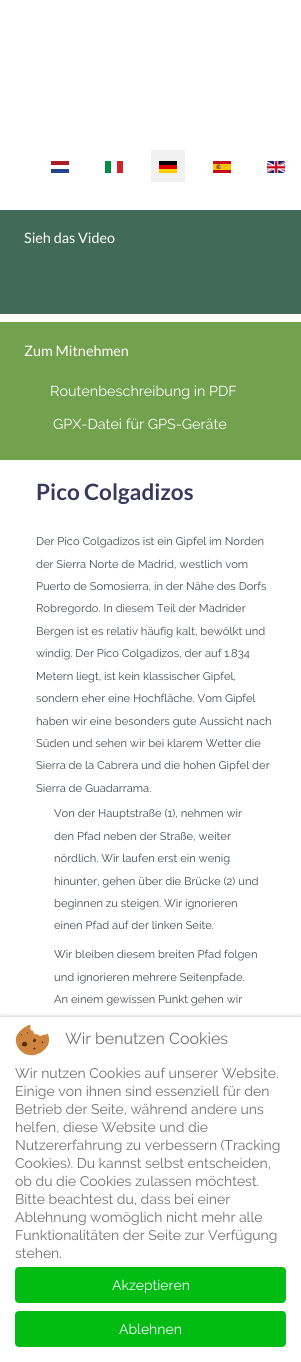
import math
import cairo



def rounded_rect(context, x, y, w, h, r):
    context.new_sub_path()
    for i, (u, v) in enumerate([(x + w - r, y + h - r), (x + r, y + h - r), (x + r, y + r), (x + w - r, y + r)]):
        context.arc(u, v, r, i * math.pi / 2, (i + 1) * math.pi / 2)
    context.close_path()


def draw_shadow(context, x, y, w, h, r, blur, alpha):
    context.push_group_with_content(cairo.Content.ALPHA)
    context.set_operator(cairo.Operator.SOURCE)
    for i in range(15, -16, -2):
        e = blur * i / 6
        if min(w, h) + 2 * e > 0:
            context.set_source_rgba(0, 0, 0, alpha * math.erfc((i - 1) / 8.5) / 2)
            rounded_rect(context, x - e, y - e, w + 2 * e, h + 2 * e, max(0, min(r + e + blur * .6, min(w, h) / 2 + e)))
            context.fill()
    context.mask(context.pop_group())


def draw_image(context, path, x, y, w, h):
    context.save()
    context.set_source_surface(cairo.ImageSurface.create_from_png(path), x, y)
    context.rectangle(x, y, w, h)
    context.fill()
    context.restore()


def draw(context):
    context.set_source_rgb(1, 1, 1)
    context.paint()
    draw_image(context, "images/1.png", 51, 161, 18, 12)
    draw_image(context, "images/2.png", 105, 161, 18, 12)
    context.set_source_rgb(240 / 255, 240 / 255, 240 / 255)
    context.rectangle(151, 150, 34, 32)
    context.fill()
    draw_image(context, "images/3.png", 159, 161, 18, 12)
    draw_image(context, "images/4.png", 213, 161, 18, 12)
    draw_image(context, "images/5.png", 267, 161, 18, 12)
    context.set_source_rgb(65 / 255, 106 / 255, 89 / 255)
    context.rectangle(0, 210, 301, 104)
    context.fill()
    context.set_source_rgb(115 / 255, 162 / 255, 78 / 255)
    context.rectangle(0, 322, 301, 138)
    context.fill()
    context.set_source_rgb(0, 0, 0)
    draw_shadow(context, 0, 1017, 301, 345, 0, 2.5, 0.25)
    context.set_source_rgb(1, 1, 1)
    context.rectangle(0, 1017, 301, 345)
    context.fill()
    draw_image(context, "images/6.png", 15, 1024, 35, 32)
    context.set_source_rgb(0, 188 / 255, 19 / 255)
    rounded_rect(context, 15, 1267, 271, 36, 4)
    context.fill()
    rounded_rect(context, 15, 1311, 271, 36, 4)
    context.fill()
    context.select_font_face("Lato")
    context.set_font_size(14.4)
    context.set_source_rgb(1, 1, 1)
    context.move_to(24, 243)
    context.show_text("Sieh das Video")
    context.move_to(24, 356)
    context.show_text("Zum Mitnehmen")
    context.select_font_face("Raleway")
    context.move_to(50, 396)
    context.show_text("Routenbeschreibung in PDF")
    context.move_to(53, 429)
    context.show_text("GPX-Datei für GPS-Geräte")
    context.select_font_face("Lato", cairo.FontSlant.NORMAL, cairo.FontWeight.BOLD)
    context.set_font_size(22.5)
    context.set_source_rgb(57 / 255, 57 / 255, 95 / 255)
    context.move_to(36, 500)
    context.show_text("Pico Colgadizos")
    context.select_font_face("Raleway")
    context.set_font_size(11.2)
    context.set_source_rgb(66 / 255, 71 / 255, 83 / 255)
    context.move_to(36, 545)
    context.show_text("Der Pico Colgadizos ist ein Gipfel im Norden")
    context.move_to(36, 568)
    context.show_text("der Sierra Norte de Madrid, westlich vom")
    context.move_to(36, 590)
    context.show_text("Puerto de Somosierra, in der Nähe des Dorfs")
    context.move_to(36, 612)
    context.show_text("Robregordo. In diesem Teil der Madrider")
    context.move_to(36, 635)
    context.show_text("Bergen ist es relativ häufig kalt, bewölkt und")
    context.move_to(36, 657)
    context.show_text("windig. Der Pico Colgadizos, der auf 1.834")
    context.move_to(36, 680)
    context.show_text("Metern liegt, ist kein klassischer Gipfel,")
    context.move_to(36, 702)
    context.show_text("sondern eher eine Hochfläche. Vom Gipfel")
    context.move_to(36, 725)
    context.show_text("haben wir eine besonders gute Aussicht nach")
    context.move_to(36, 747)
    context.show_text("Süden und sehen wir bei klarem Wetter die")
    context.move_to(36, 769)
    context.show_text("Sierra de la Cabrera und die hohen Gipfel der")
    context.move_to(36, 792)
    context.show_text("Sierra de Guadarrama.")
    context.move_to(54, 817)
    context.show_text("Von der Hauptstraße (1), nehmen wir")
    context.move_to(54, 840)
    context.show_text("den Pfad neben der Straße, weiter")
    context.move_to(54, 862)
    context.show_text("nördlich. Wir laufen erst ein wenig")
    context.move_to(54, 885)
    context.show_text("hinunter, gehen über die Brücke (2) und")
    context.move_to(54, 907)
    context.show_text("beginnen zu steigen. Wir ignorieren")
    context.move_to(54, 929)
    context.show_text("einen Pfad auf der linken Seite.")
    context.move_to(54, 958)
    context.show_text("Wir bleiben diesem breiten Pfad folgen")
    context.move_to(54, 981)
    context.show_text("und ignorieren mehrere Seitenpfade.")
    context.move_to(54, 1003)
    context.show_text("An einem gewissen Punkt gehen wir")
    context.set_font_size(16)
    context.set_source_rgb(112 / 255, 112 / 255, 112 / 255)
    context.move_to(65, 1044)
    context.show_text("Wir benutzen Cookies")
    context.set_font_size(14)
    context.move_to(15, 1078)
    context.show_text("Wir nutzen Cookies auf unserer Website.")
    context.move_to(15, 1096)
    context.show_text("Einige von ihnen sind essenziell für den")
    context.move_to(15, 1114)
    context.show_text("Betrieb der Seite, während andere uns")
    context.move_to(15, 1132)
    context.show_text("helfen, diese Website und die")
    context.move_to(15, 1150)
    context.show_text("Nutzererfahrung zu verbessern (Tracking")
    context.move_to(15, 1168)
    context.show_text("Cookies). Du kannst selbst entscheiden,")
    context.move_to(15, 1186)
    context.show_text("ob du die Cookies zulassen möchtest.")
    context.move_to(15, 1204)
    context.show_text("Bitte beachtest du, dass bei einer")
    context.move_to(15, 1222)
    context.show_text("Ablehnung womöglich nicht mehr alle")
    context.move_to(15, 1240)
    context.show_text("Funktionalitäten der Seite zur Verfügung")
    context.move_to(15, 1258)
    context.show_text("stehen.")
    context.set_source_rgb(1, 1, 1)
    context.move_to(112, 1290)
    context.show_text("Akzeptieren")
    context.move_to(119, 1334)
    context.show_text("Ablehnen")


surface = cairo.ImageSurface(cairo.Format.RGB24, 301, 1362)
context = cairo.Context(surface)
options = cairo.FontOptions()
options.set_hint_metrics(cairo.HintMetrics.OFF)
options.set_hint_style(cairo.HintStyle.NONE)
context.set_font_options(options)
context.set_miter_limit(4)
draw(context)
surface.write_to_png("out.png")
